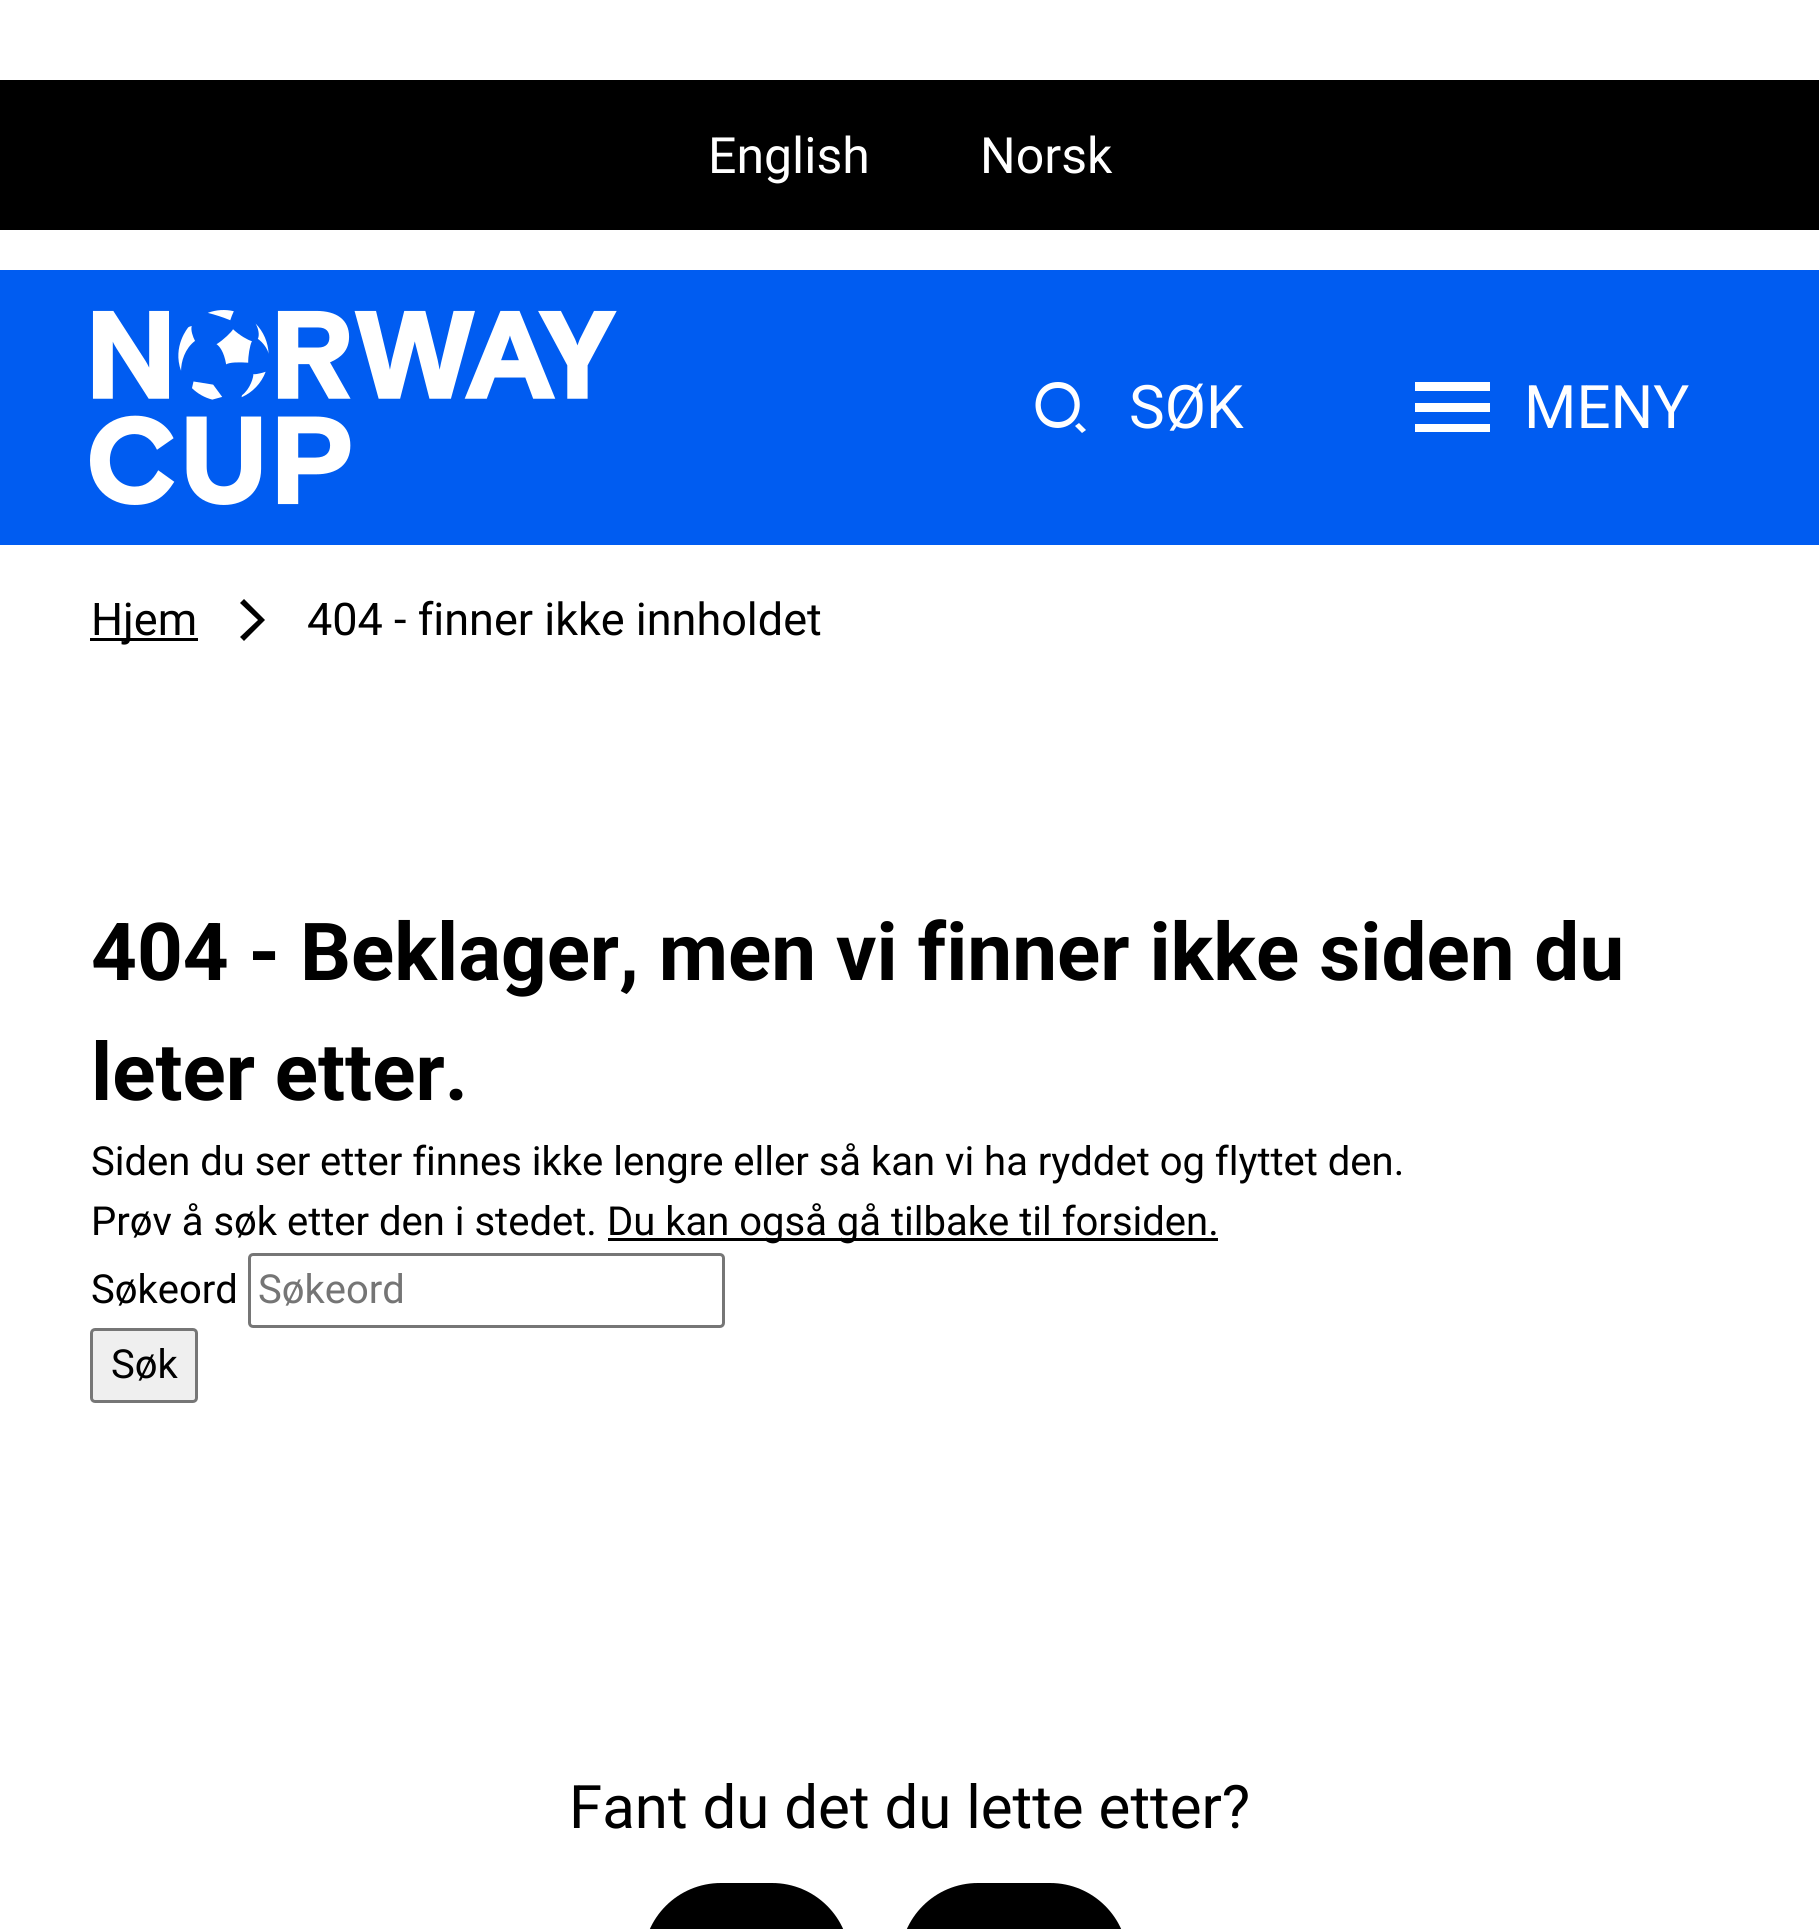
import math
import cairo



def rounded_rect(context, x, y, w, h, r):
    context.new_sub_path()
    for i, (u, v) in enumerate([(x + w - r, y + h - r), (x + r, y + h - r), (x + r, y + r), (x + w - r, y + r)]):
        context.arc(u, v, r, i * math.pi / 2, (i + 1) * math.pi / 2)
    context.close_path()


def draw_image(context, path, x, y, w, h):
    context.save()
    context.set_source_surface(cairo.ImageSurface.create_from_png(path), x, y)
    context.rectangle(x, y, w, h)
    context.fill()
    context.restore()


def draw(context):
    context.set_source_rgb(1, 1, 1)
    context.paint()
    context.set_source_rgb(0, 0, 0)
    context.rectangle(0, 80, 1819, 150)
    context.fill()
    context.set_source_rgb(0, 92 / 255, 241 / 255)
    context.rectangle(0, 270, 1819, 275)
    context.fill()
    draw_image(context, "images/1.png", 90, 310, 527, 195)
    context.set_source_rgb(1, 1, 1)
    context.new_path()
    context.move_to(1058, 382)
    context.curve_to(1087, 382, 1087, 427, 1058, 428)
    context.curve_to(1028, 428, 1028, 382, 1058, 382)
    context.close_path()
    context.move_to(1058, 422)
    context.curve_to(1080, 422, 1080, 388, 1058, 388)
    context.curve_to(1035, 388, 1035, 422, 1058, 422)
    context.close_path()
    context.move_to(1079, 423)
    context.line_to(1086, 430)
    context.line_to(1082, 433)
    context.line_to(1075, 426)
    context.close_path()
    context.fill()
    context.new_path()
    context.move_to(1415, 432)
    context.line_to(1490, 432)
    context.line_to(1490, 424)
    context.line_to(1415, 424)
    context.close_path()
    context.move_to(1415, 412)
    context.line_to(1490, 412)
    context.line_to(1490, 403)
    context.line_to(1415, 403)
    context.close_path()
    context.move_to(1415, 382)
    context.line_to(1415, 391)
    context.line_to(1490, 391)
    context.line_to(1490, 382)
    context.close_path()
    context.fill()
    context.set_source_rgb(0, 0, 0)
    context.rectangle(90, 638, 108, 3)
    context.fill()
    context.new_path()
    context.move_to(240, 637)
    context.line_to(244, 641)
    context.line_to(265, 620)
    context.line_to(244, 599)
    context.line_to(240, 603)
    context.line_to(258, 620)
    context.close_path()
    context.fill()
    context.rectangle(608, 1238, 610, 3)
    context.fill()
    rounded_rect(context, 249.5, 1254.5, 474, 72, 3.5)
    context.set_source_rgb(118 / 255, 118 / 255, 118 / 255)
    context.set_line_width(3)
    context.stroke()
    context.set_source_rgb(239 / 255, 239 / 255, 239 / 255)
    rounded_rect(context, 91.5, 1329.5, 105, 72, 3.5)
    context.fill_preserve()
    context.set_source_rgb(118 / 255, 118 / 255, 118 / 255)
    context.stroke()
    context.set_source_rgb(0, 0, 0)
    rounded_rect(context, 643, 1883, 207, 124, 78)
    context.fill()
    rounded_rect(context, 900, 1883, 228, 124, 78)
    context.fill()
    context.select_font_face("Roboto")
    context.set_font_size(50)
    context.set_source_rgb(1, 1, 1)
    context.move_to(708, 173)
    context.show_text("English")
    context.move_to(980, 173)
    context.show_text("Norsk")
    context.set_font_size(60)
    context.move_to(1129, 428)
    context.show_text("SØK")
    context.move_to(1524, 428)
    context.show_text("MENY")
    context.set_font_size(45)
    context.set_source_rgb(0, 0, 0)
    context.move_to(91, 635)
    context.show_text("Hjem")
    context.move_to(307, 635)
    context.show_text("404 - finner ikke innholdet")
    context.select_font_face("Roboto", cairo.FontSlant.NORMAL, cairo.FontWeight.BOLD)
    context.set_font_size(80)
    context.move_to(91, 980)
    context.show_text("404 - Beklager, men vi finner ikke siden du")
    context.move_to(91, 1100)
    context.show_text("leter etter.")
    context.select_font_face("Roboto")
    context.set_font_size(40)
    context.move_to(91, 1175)
    context.show_text("Siden du ser etter finnes ikke lengre eller så kan vi ha ryddet og flyttet den.")
    context.move_to(91, 1235)
    context.show_text("Prøv å søk etter den i stedet.")
    context.move_to(607, 1235)
    context.show_text("Du kan også gå tilbake til forsiden.")
    context.move_to(91, 1303)
    context.show_text("Søkeord")
    context.set_source_rgb(117 / 255, 117 / 255, 117 / 255)
    context.move_to(258, 1303)
    context.show_text("Søkeord")
    context.set_source_rgb(0, 0, 0)
    context.move_to(111, 1378)
    context.show_text("Søk")
    context.set_font_size(60)
    context.move_to(569, 1828)
    context.show_text("Fant du det du lette etter?")


surface = cairo.ImageSurface(cairo.Format.RGB24, 1819, 1929)
context = cairo.Context(surface)
options = cairo.FontOptions()
options.set_hint_metrics(cairo.HintMetrics.OFF)
options.set_hint_style(cairo.HintStyle.NONE)
context.set_font_options(options)
context.set_miter_limit(4)
draw(context)
surface.write_to_png("out.png")
